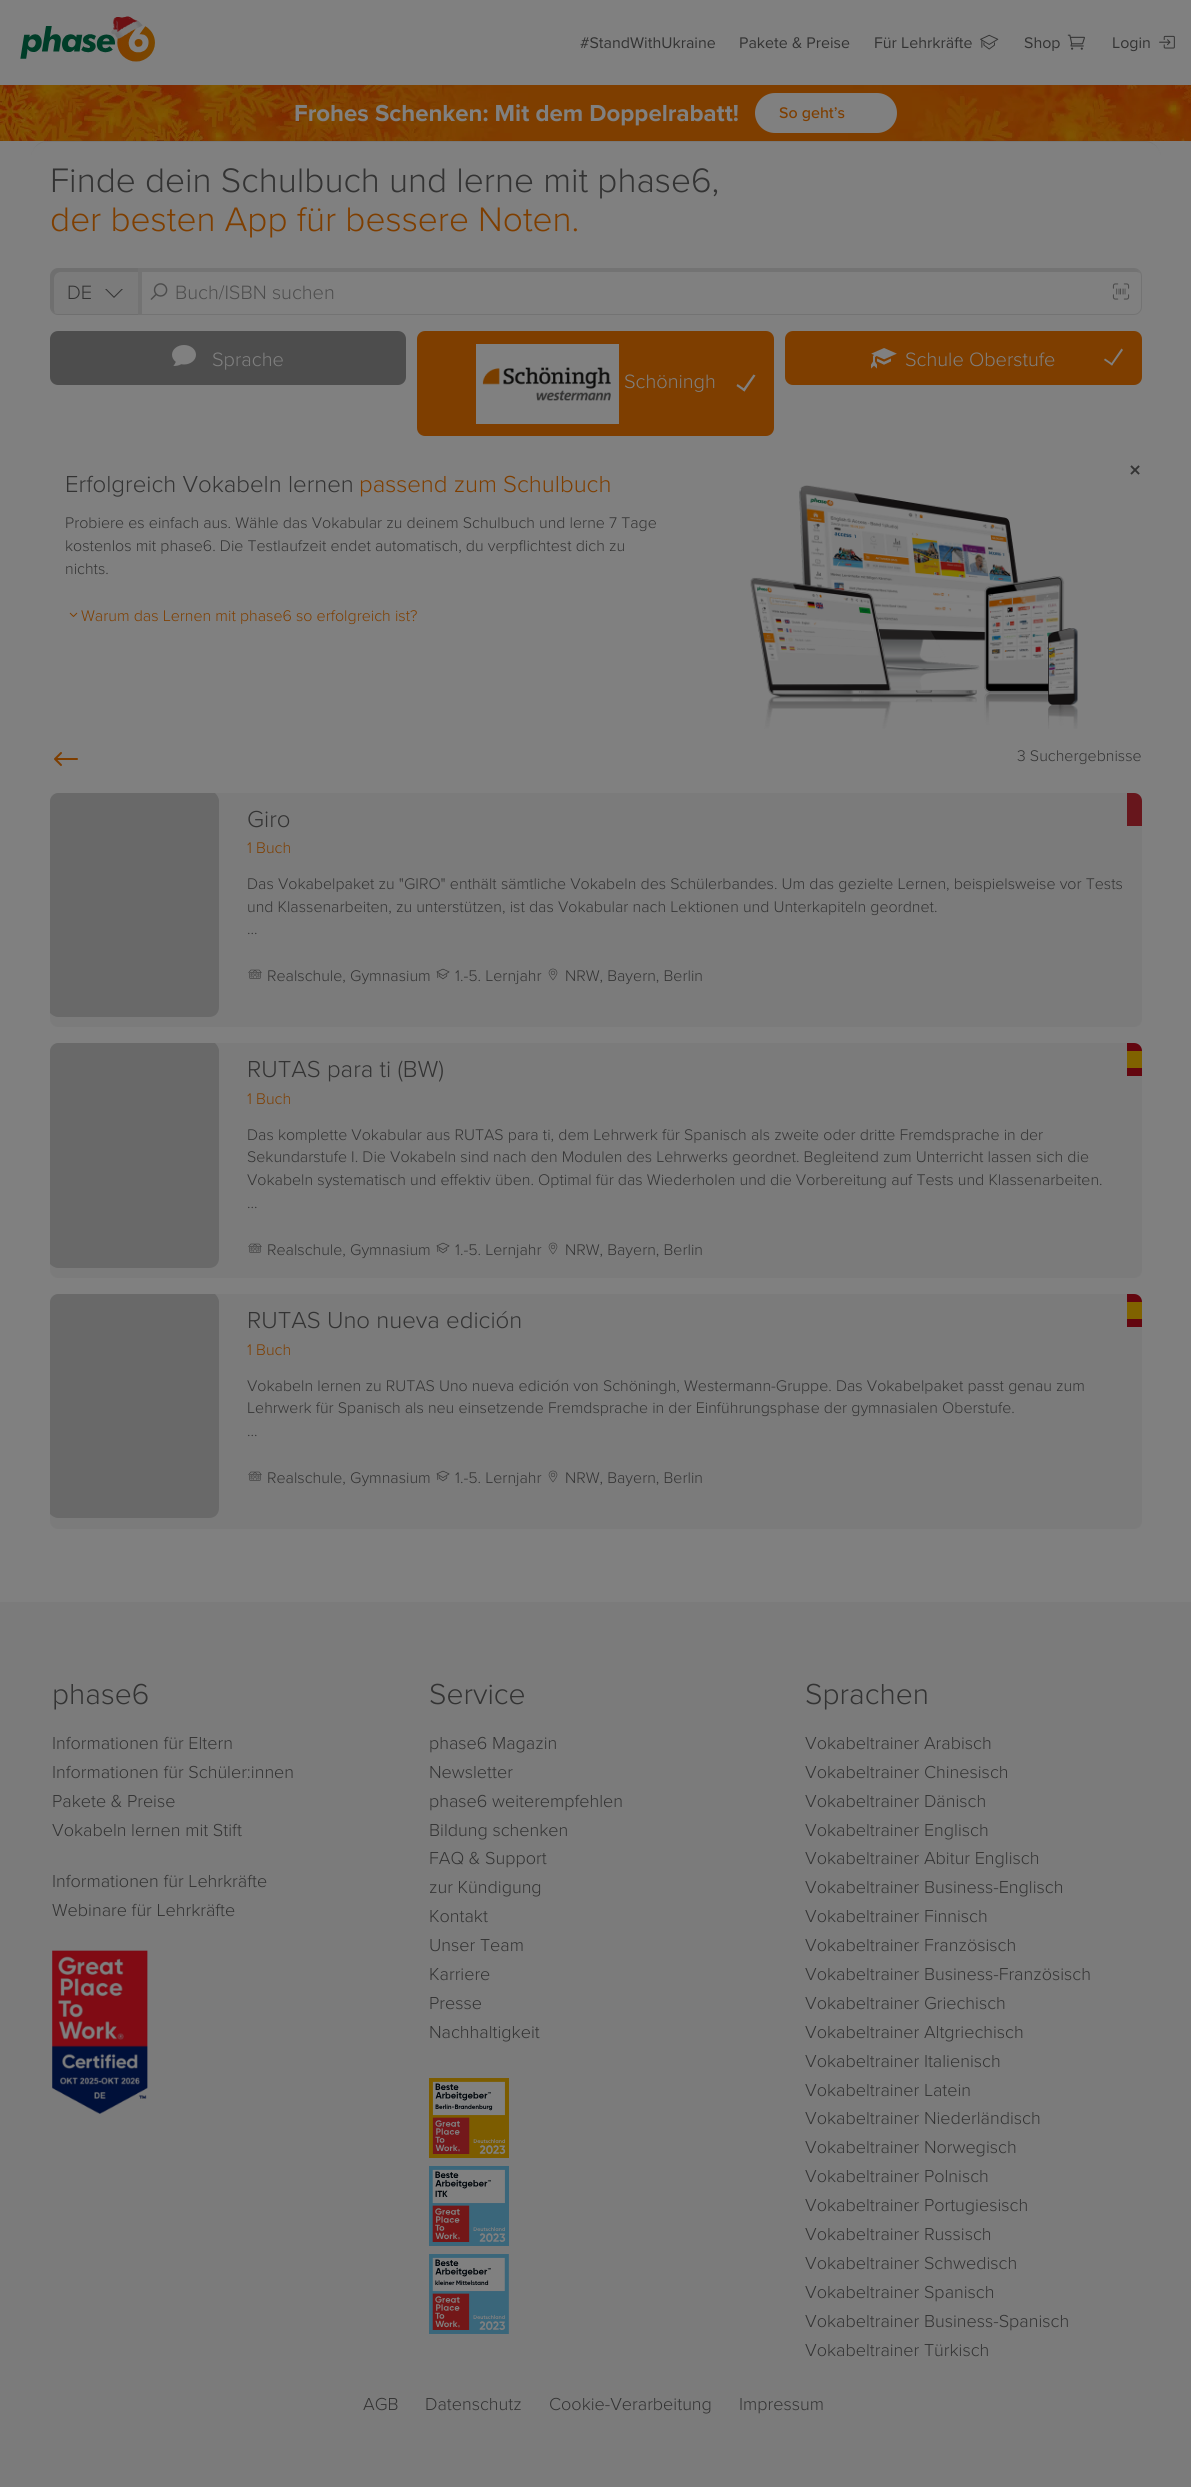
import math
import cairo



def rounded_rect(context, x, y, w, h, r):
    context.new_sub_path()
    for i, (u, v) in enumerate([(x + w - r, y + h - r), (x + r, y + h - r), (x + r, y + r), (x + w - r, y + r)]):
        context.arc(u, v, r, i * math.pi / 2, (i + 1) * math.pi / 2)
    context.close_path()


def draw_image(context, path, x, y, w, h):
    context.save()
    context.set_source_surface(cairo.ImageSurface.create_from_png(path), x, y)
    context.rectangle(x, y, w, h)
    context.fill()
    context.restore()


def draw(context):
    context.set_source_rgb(128 / 255, 128 / 255, 128 / 255)
    context.paint()
    draw_image(context, "images/1.png", 20, 16, 135, 46)
    draw_image(context, "images/2.png", 980, 34, 19, 16)
    draw_image(context, "images/3.png", 1067, 34, 18, 16)
    draw_image(context, "images/4.png", 1159, 35, 16, 14)
    draw_image(context, "images/5.png", 0, 85, 1191, 56)
    context.set_source_rgb(128 / 255, 128 / 255, 128 / 255)
    rounded_rect(context, 755, 93, 142, 40, 20)
    context.fill()
    context.set_source_rgb(121 / 255, 121 / 255, 121 / 255)
    context.new_path()
    context.move_to(47, 142)
    context.line_to(1145, 142)
    context.curve_to(1154, 142, 1161, 149, 1161, 158)
    context.curve_to(1161, 149, 1154, 141, 1145, 141)
    context.line_to(47, 141)
    context.curve_to(38, 141, 31, 149, 31, 158)
    context.curve_to(31, 149, 38, 142, 47, 142)
    context.close_path()
    context.fill()
    context.set_source_rgb(123 / 255, 123 / 255, 123 / 255)
    context.new_path()
    context.move_to(58, 268)
    context.line_to(138, 268)
    context.line_to(138, 315)
    context.line_to(58, 315)
    context.curve_to(53.5, 315, 50, 311.5, 50, 307)
    context.line_to(50, 276)
    context.curve_to(50, 271.5, 53.5, 268, 58, 268)
    context.close_path()
    context.fill()
    context.set_source_rgb(111 / 255, 111 / 255, 111 / 255)
    context.new_path()
    context.move_to(61, 272)
    context.line_to(138, 272)
    context.line_to(138, 269)
    context.line_to(58, 269)
    context.curve_to(54, 269, 51, 272, 51, 276)
    context.line_to(51, 307)
    context.curve_to(51, 310, 53, 312, 55, 313)
    context.line_to(54, 310)
    context.line_to(54, 279)
    context.curve_to(54, 275, 57, 272, 61, 272)
    context.close_path()
    context.fill()
    context.set_source_rgba(0, 0, 0, 0.1)
    context.set_fill_rule(cairo.FillRule.EVEN_ODD)
    context.new_path()
    context.move_to(58, 268)
    context.line_to(138, 268)
    context.line_to(138, 315)
    context.line_to(58, 315)
    context.curve_to(54, 315, 50, 311, 50, 307)
    context.line_to(50, 276)
    context.curve_to(50, 272, 54, 268, 58, 268)
    context.close_path()
    context.move_to(58, 269)
    context.line_to(138, 269)
    context.line_to(138, 314)
    context.line_to(58, 314)
    context.curve_to(54, 314, 51, 311, 51, 307)
    context.line_to(51, 276)
    context.curve_to(51, 272, 54, 269, 58, 269)
    context.close_path()
    context.fill()
    context.set_source_rgb(51 / 255, 51 / 255, 51 / 255)
    context.set_fill_rule(cairo.FillRule.WINDING)
    context.new_path()
    context.move_to(123, 289)
    context.line_to(114, 298)
    context.line_to(114, 296.5)
    context.line_to(121.5, 289)
    context.close_path()
    context.move_to(114, 298)
    context.line_to(105, 289)
    context.line_to(106.5, 289)
    context.line_to(114, 296.5)
    context.close_path()
    context.fill()
    context.set_source_rgb(115 / 255, 115 / 255, 115 / 255)
    context.new_path()
    context.move_to(142, 272)
    context.line_to(1137, 272)
    context.line_to(1140, 273)
    context.curve_to(1139, 271, 1137, 269, 1134, 269)
    context.line_to(139, 269)
    context.line_to(139, 314)
    context.line_to(142, 314)
    context.close_path()
    context.fill()
    context.new_path()
    context.move_to(138.5, 268.5)
    context.line_to(1134, 268.5)
    context.curve_to(1138, 268.5, 1141.5, 272, 1141.5, 276)
    context.line_to(1141.5, 307)
    context.curve_to(1141.5, 311, 1138, 314.5, 1134, 314.5)
    context.line_to(138.5, 314.5)
    context.close_path()
    context.set_source_rgba(0, 0, 0, 0.1)
    context.set_line_width(1)
    context.stroke()
    draw_image(context, "images/6.png", 150, 283, 18, 17)
    draw_image(context, "images/7.png", 1112, 283, 18, 17)
    context.set_source_rgb(77 / 255, 77 / 255, 77 / 255)
    rounded_rect(context, 50, 331, 356, 54, 8)
    context.fill()
    draw_image(context, "images/8.png", 172, 345, 24, 21)
    context.set_source_rgb(126 / 255, 62 / 255, 0)
    rounded_rect(context, 785, 331, 357, 54, 8)
    context.fill()
    draw_image(context, "images/9.png", 871, 348, 26, 21)
    context.set_source_rgb(128 / 255, 128 / 255, 128 / 255)
    context.new_path()
    context.move_to(1121.5, 348.5)
    context.line_to(1123, 350)
    context.line_to(1112, 365.5)
    context.line_to(1110.5, 364.5)
    context.close_path()
    context.fill()
    context.new_path()
    context.move_to(1105, 358.5)
    context.line_to(1113, 364)
    context.line_to(1112, 365.5)
    context.line_to(1104, 360)
    context.close_path()
    context.fill()
    context.set_source_rgb(126 / 255, 62 / 255, 0)
    rounded_rect(context, 417, 331, 357, 105, 8)
    context.fill()
    draw_image(context, "images/10.png", 476, 344, 143, 80)
    context.set_source_rgb(128 / 255, 128 / 255, 128 / 255)
    context.new_path()
    context.move_to(753.5, 374.5)
    context.line_to(755.5, 375.5)
    context.line_to(744.5, 391.5)
    context.line_to(742.5, 390)
    context.close_path()
    context.fill()
    context.new_path()
    context.move_to(737.5, 384)
    context.line_to(745.5, 389.5)
    context.line_to(744.5, 391.5)
    context.line_to(736.5, 386)
    context.close_path()
    context.fill()
    draw_image(context, "images/11.png", 69, 612, 9, 5)
    draw_image(context, "images/12.png", 750, 485, 328, 244)
    draw_image(context, "images/13.png", 54, 752, 24, 14)
    context.set_source_rgb(123 / 255, 123 / 255, 123 / 255)
    rounded_rect(context, 50, 793, 1092, 234, 8)
    context.fill()
    context.set_source_rgb(105 / 255, 105 / 255, 105 / 255)
    context.new_path()
    context.move_to(58, 793)
    context.curve_to(54, 793, 50, 797, 50, 801)
    context.line_to(50, 1013)
    context.curve_to(52, 1015, 55, 1017, 58, 1017)
    context.line_to(209, 1017)
    context.curve_to(215, 1017, 219, 1013, 219, 1007)
    context.line_to(219, 801)
    context.curve_to(219, 798, 217, 795, 215, 793)
    context.close_path()
    context.fill()
    context.set_source_rgb(103 / 255, 22 / 255, 28 / 255)
    context.new_path()
    context.move_to(1125, 793)
    context.line_to(1134, 793)
    context.curve_to(1138.5, 793, 1142, 796.5, 1142, 801)
    context.line_to(1142, 826)
    context.line_to(1125, 826)
    context.close_path()
    context.fill()
    context.set_source_rgb(123 / 255, 123 / 255, 123 / 255)
    context.rectangle(1125, 793, 2, 33)
    context.fill()
    draw_image(context, "images/14.png", 248, 969, 14, 10)
    draw_image(context, "images/15.png", 436, 968, 14, 12)
    draw_image(context, "images/16.png", 548, 968, 10, 13)
    rounded_rect(context, 50, 1043, 1092, 235, 8)
    context.fill()
    context.set_source_rgb(105 / 255, 105 / 255, 105 / 255)
    context.new_path()
    context.move_to(58, 1043)
    context.curve_to(54, 1043, 50, 1047, 50, 1051)
    context.line_to(50, 1264)
    context.curve_to(52, 1266, 55, 1268, 58, 1268)
    context.line_to(209, 1268)
    context.curve_to(215, 1268, 219, 1264, 219, 1258)
    context.line_to(219, 1051)
    context.curve_to(219, 1048, 217, 1045, 215, 1043)
    context.close_path()
    context.fill()
    context.set_source_rgb(99 / 255, 6 / 255, 15 / 255)
    context.new_path()
    context.move_to(1092, 1043)
    context.line_to(1134, 1043)
    context.curve_to(1138.5, 1043, 1142, 1046.5, 1142, 1051)
    context.line_to(1142, 1076)
    context.line_to(1092, 1076)
    context.close_path()
    context.fill()
    context.set_source_rgb(123 / 255, 123 / 255, 123 / 255)
    context.rectangle(1092, 1043, 35, 33)
    context.fill()
    context.set_source_rgb(128 / 255, 98 / 255, 0)
    context.rectangle(1127, 1051, 15, 17)
    context.fill()
    draw_image(context, "images/14.png", 248, 1243, 14, 10)
    draw_image(context, "images/15.png", 436, 1242, 14, 12)
    draw_image(context, "images/16.png", 548, 1242, 10, 13)
    context.set_source_rgb(123 / 255, 123 / 255, 123 / 255)
    rounded_rect(context, 50, 1294, 1092, 235, 8)
    context.fill()
    context.set_source_rgb(105 / 255, 105 / 255, 105 / 255)
    context.new_path()
    context.move_to(58, 1294)
    context.curve_to(54, 1294, 50, 1298, 50, 1302)
    context.line_to(50, 1514)
    context.curve_to(52, 1516, 55, 1518, 58, 1518)
    context.line_to(209, 1518)
    context.curve_to(215, 1518, 219, 1514, 219, 1508)
    context.line_to(219, 1302)
    context.curve_to(219, 1299, 217, 1296, 215, 1294)
    context.close_path()
    context.fill()
    context.set_source_rgb(99 / 255, 6 / 255, 15 / 255)
    context.new_path()
    context.move_to(1092, 1294)
    context.line_to(1134, 1294)
    context.curve_to(1138.5, 1294, 1142, 1297.5, 1142, 1302)
    context.line_to(1142, 1327)
    context.line_to(1092, 1327)
    context.close_path()
    context.fill()
    context.set_source_rgb(123 / 255, 123 / 255, 123 / 255)
    context.rectangle(1092, 1294, 35, 33)
    context.fill()
    context.set_source_rgb(128 / 255, 98 / 255, 0)
    context.rectangle(1127, 1302, 15, 17)
    context.fill()
    draw_image(context, "images/14.png", 248, 1471, 14, 10)
    draw_image(context, "images/15.png", 436, 1470, 14, 12)
    draw_image(context, "images/16.png", 548, 1470, 10, 13)
    context.set_source_rgb(123 / 255, 123 / 255, 123 / 255)
    context.rectangle(0, 1602, 1191, 885)
    context.fill()
    draw_image(context, "images/17.png", 52, 1950, 96, 164)
    draw_image(context, "images/18.png", 429, 2078, 80, 80)
    draw_image(context, "images/19.png", 429, 2166, 80, 80)
    draw_image(context, "images/20.png", 429, 2254, 80, 80)
    context.select_font_face("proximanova")
    context.set_font_size(16)
    context.set_source_rgb(51 / 255, 51 / 255, 51 / 255)
    context.move_to(580, 48)
    context.show_text("#StandWithUkraine")
    context.move_to(739, 48)
    context.show_text("Pakete & Preise")
    context.move_to(874, 48)
    context.show_text("Für Lehrkräfte")
    context.move_to(1024, 48)
    context.show_text("Shop")
    context.move_to(1112, 48)
    context.show_text("Login")
    context.select_font_face("proximanova", cairo.FontSlant.NORMAL, cairo.FontWeight.BOLD)
    context.set_font_size(24)
    context.set_source_rgb(128 / 255, 128 / 255, 128 / 255)
    context.move_to(294, 121)
    context.show_text("Frohes Schenken: Mit dem Doppelrabatt!")
    context.select_font_face("Proxima Nova Medium")
    context.set_font_size(16)
    context.set_source_rgb(126 / 255, 62 / 255, 0)
    context.move_to(779, 118)
    context.show_text("So geht’s")
    context.select_font_face("Proxima Nova Light")
    context.set_font_size(35.25)
    context.set_source_rgb(51 / 255, 51 / 255, 51 / 255)
    context.move_to(50, 192)
    context.show_text("Finde dein Schulbuch und lerne mit phase6,")
    context.set_source_rgb(126 / 255, 62 / 255, 0)
    context.move_to(50, 231)
    context.show_text("der besten App für bessere Noten.")
    context.set_font_size(20)
    context.set_source_rgb(51 / 255, 51 / 255, 51 / 255)
    context.move_to(67, 299)
    context.show_text("DE")
    context.set_source_rgb(77 / 255, 77 / 255, 77 / 255)
    context.move_to(175, 299)
    context.show_text("Buch/ISBN suchen")
    context.set_source_rgb(128 / 255, 128 / 255, 128 / 255)
    context.move_to(212, 366)
    context.show_text("Sprache")
    context.move_to(905, 366)
    context.show_text("Schule Oberstufe")
    context.move_to(624, 388)
    context.show_text("Schöningh")
    context.select_font_face("proximanova", cairo.FontSlant.NORMAL, cairo.FontWeight.BOLD)
    context.set_font_size(24)
    context.set_source_rgb(51 / 255, 51 / 255, 51 / 255)
    context.move_to(1129, 478)
    context.show_text("×")
    context.select_font_face("Proxima Nova Light")
    context.move_to(65, 492)
    context.show_text("Erfolgreich Vokabeln lernen")
    context.set_source_rgb(126 / 255, 62 / 255, 0)
    context.move_to(359, 492)
    context.show_text("passend zum Schulbuch")
    context.set_font_size(16)
    context.set_source_rgb(51 / 255, 51 / 255, 51 / 255)
    context.move_to(65, 528)
    context.show_text("Probiere es einfach aus. Wähle das Vokabular zu deinem Schulbuch und lerne 7 Tage")
    context.move_to(65, 551)
    context.show_text("kostenlos mit phase6. Die Testlaufzeit endet automatisch, du verpflichtest dich zu")
    context.move_to(65, 574)
    context.show_text("nichts.")
    context.set_source_rgb(126 / 255, 62 / 255, 0)
    context.move_to(81, 621)
    context.show_text("Warum das Lernen mit phase6 so erfolgreich ist?")
    context.set_source_rgb(51 / 255, 51 / 255, 51 / 255)
    context.move_to(1017, 761)
    context.show_text("3 Suchergebnisse")
    context.set_font_size(24)
    context.move_to(247, 827)
    context.show_text("Giro")
    context.set_font_size(16)
    context.set_source_rgb(126 / 255, 62 / 255, 0)
    context.move_to(247, 853)
    context.show_text("1 Buch")
    context.set_source_rgb(51 / 255, 51 / 255, 51 / 255)
    context.move_to(247, 889)
    context.show_text("Das Vokabelpaket zu \"GIRO\" enthält sämtliche Vokabeln des Schülerbandes. Um das gezielte Lernen, beispielsweise vor Tests")
    context.move_to(247, 912)
    context.show_text("und Klassenarbeiten, zu unterstützen, ist das Vokabular nach Lektionen und Unterkapiteln geordnet.")
    context.move_to(247, 934)
    context.show_text("...")
    context.move_to(267, 981)
    context.show_text("Realschule, Gymnasium")
    context.move_to(455, 981)
    context.show_text("1.-5. Lernjahr")
    context.move_to(565, 981)
    context.show_text("NRW, Bayern, Berlin")
    context.set_font_size(24)
    context.move_to(247, 1077)
    context.show_text("RUTAS para ti (BW)")
    context.set_font_size(16)
    context.set_source_rgb(126 / 255, 62 / 255, 0)
    context.move_to(247, 1104)
    context.show_text("1 Buch")
    context.set_source_rgb(51 / 255, 51 / 255, 51 / 255)
    context.move_to(247, 1140)
    context.show_text("Das komplette Vokabular aus RUTAS para ti, dem Lehrwerk für Spanisch als zweite oder dritte Fremdsprache in der")
    context.move_to(247, 1162)
    context.show_text("Sekundarstufe I. Die Vokabeln sind nach den Modulen des Lehrwerks geordnet. Begleitend zum Unterricht lassen sich die")
    context.move_to(247, 1185)
    context.show_text("Vokabeln systematisch und effektiv üben. Optimal für das Wiederholen und die Vorbereitung auf Tests und Klassenarbeiten.")
    context.move_to(247, 1208)
    context.show_text("...")
    context.move_to(267, 1255)
    context.show_text("Realschule, Gymnasium")
    context.move_to(455, 1255)
    context.show_text("1.-5. Lernjahr")
    context.move_to(565, 1255)
    context.show_text("NRW, Bayern, Berlin")
    context.set_font_size(24)
    context.move_to(247, 1328)
    context.show_text("RUTAS Uno nueva edición")
    context.set_font_size(16)
    context.set_source_rgb(126 / 255, 62 / 255, 0)
    context.move_to(247, 1355)
    context.show_text("1 Buch")
    context.set_source_rgb(51 / 255, 51 / 255, 51 / 255)
    context.move_to(247, 1391)
    context.show_text("Vokabeln lernen zu RUTAS Uno nueva edición von Schöningh, Westermann-Gruppe. Das Vokabelpaket passt genau zum")
    context.move_to(247, 1413)
    context.show_text("Lehrwerk für Spanisch als neu einsetzende Fremdsprache in der Einführungsphase der gymnasialen Oberstufe.")
    context.move_to(247, 1436)
    context.show_text("...")
    context.move_to(267, 1483)
    context.show_text("Realschule, Gymnasium")
    context.move_to(455, 1483)
    context.show_text("1.-5. Lernjahr")
    context.move_to(565, 1483)
    context.show_text("NRW, Bayern, Berlin")
    context.set_font_size(30)
    context.move_to(52, 1704)
    context.show_text("phase6")
    context.set_font_size(18)
    context.move_to(52, 1749)
    context.show_text("Informationen für Eltern")
    context.move_to(52, 1778)
    context.show_text("Informationen für Schüler:innen")
    context.move_to(52, 1807)
    context.show_text("Pakete & Preise")
    context.move_to(52, 1836)
    context.show_text("Vokabeln lernen mit Stift")
    context.move_to(52, 1887)
    context.show_text("Informationen für Lehrkräfte")
    context.move_to(52, 1916)
    context.show_text("Webinare für Lehrkräfte")
    context.set_font_size(30)
    context.move_to(429, 1704)
    context.show_text("Service")
    context.set_font_size(18)
    context.move_to(429, 1749)
    context.show_text("phase6 Magazin")
    context.move_to(429, 1778)
    context.show_text("Newsletter")
    context.move_to(429, 1807)
    context.show_text("phase6 weiterempfehlen")
    context.move_to(429, 1836)
    context.show_text("Bildung schenken")
    context.move_to(429, 1864)
    context.show_text("FAQ & Support")
    context.move_to(429, 1893)
    context.show_text("zur Kündigung")
    context.move_to(429, 1922)
    context.show_text("Kontakt")
    context.move_to(429, 1951)
    context.show_text("Unser Team")
    context.move_to(429, 1980)
    context.show_text("Karriere")
    context.move_to(429, 2009)
    context.show_text("Presse")
    context.move_to(429, 2038)
    context.show_text("Nachhaltigkeit")
    context.set_font_size(30)
    context.move_to(805, 1704)
    context.show_text("Sprachen")
    context.set_font_size(18)
    context.move_to(805, 1749)
    context.show_text("Vokabeltrainer Arabisch")
    context.move_to(805, 1778)
    context.show_text("Vokabeltrainer Chinesisch")
    context.move_to(805, 1807)
    context.show_text("Vokabeltrainer Dänisch")
    context.move_to(805, 1836)
    context.show_text("Vokabeltrainer Englisch")
    context.move_to(805, 1864)
    context.show_text("Vokabeltrainer Abitur Englisch")
    context.move_to(805, 1893)
    context.show_text("Vokabeltrainer Business-Englisch")
    context.move_to(805, 1922)
    context.show_text("Vokabeltrainer Finnisch")
    context.move_to(805, 1951)
    context.show_text("Vokabeltrainer Französisch")
    context.move_to(805, 1980)
    context.show_text("Vokabeltrainer Business-Französisch")
    context.move_to(805, 2009)
    context.show_text("Vokabeltrainer Griechisch")
    context.move_to(805, 2038)
    context.show_text("Vokabeltrainer Altgriechisch")
    context.move_to(805, 2067)
    context.show_text("Vokabeltrainer Italienisch")
    context.move_to(805, 2096)
    context.show_text("Vokabeltrainer Latein")
    context.move_to(805, 2124)
    context.show_text("Vokabeltrainer Niederländisch")
    context.move_to(805, 2153)
    context.show_text("Vokabeltrainer Norwegisch")
    context.move_to(805, 2182)
    context.show_text("Vokabeltrainer Polnisch")
    context.move_to(805, 2211)
    context.show_text("Vokabeltrainer Portugiesisch")
    context.move_to(805, 2240)
    context.show_text("Vokabeltrainer Russisch")
    context.move_to(805, 2269)
    context.show_text("Vokabeltrainer Schwedisch")
    context.move_to(805, 2298)
    context.show_text("Vokabeltrainer Spanisch")
    context.move_to(805, 2327)
    context.show_text("Vokabeltrainer Business-Spanisch")
    context.move_to(805, 2356)
    context.show_text("Vokabeltrainer Türkisch")
    context.move_to(363, 2410)
    context.show_text("AGB")
    context.move_to(425, 2410)
    context.show_text("Datenschutz")
    context.move_to(549, 2410)
    context.show_text("Cookie-Verarbeitung")
    context.move_to(739, 2410)
    context.show_text("Impressum")


surface = cairo.ImageSurface(cairo.Format.RGB24, 1191, 2487)
context = cairo.Context(surface)
options = cairo.FontOptions()
options.set_hint_metrics(cairo.HintMetrics.OFF)
options.set_hint_style(cairo.HintStyle.NONE)
context.set_font_options(options)
context.set_miter_limit(4)
draw(context)
surface.write_to_png("out.png")
